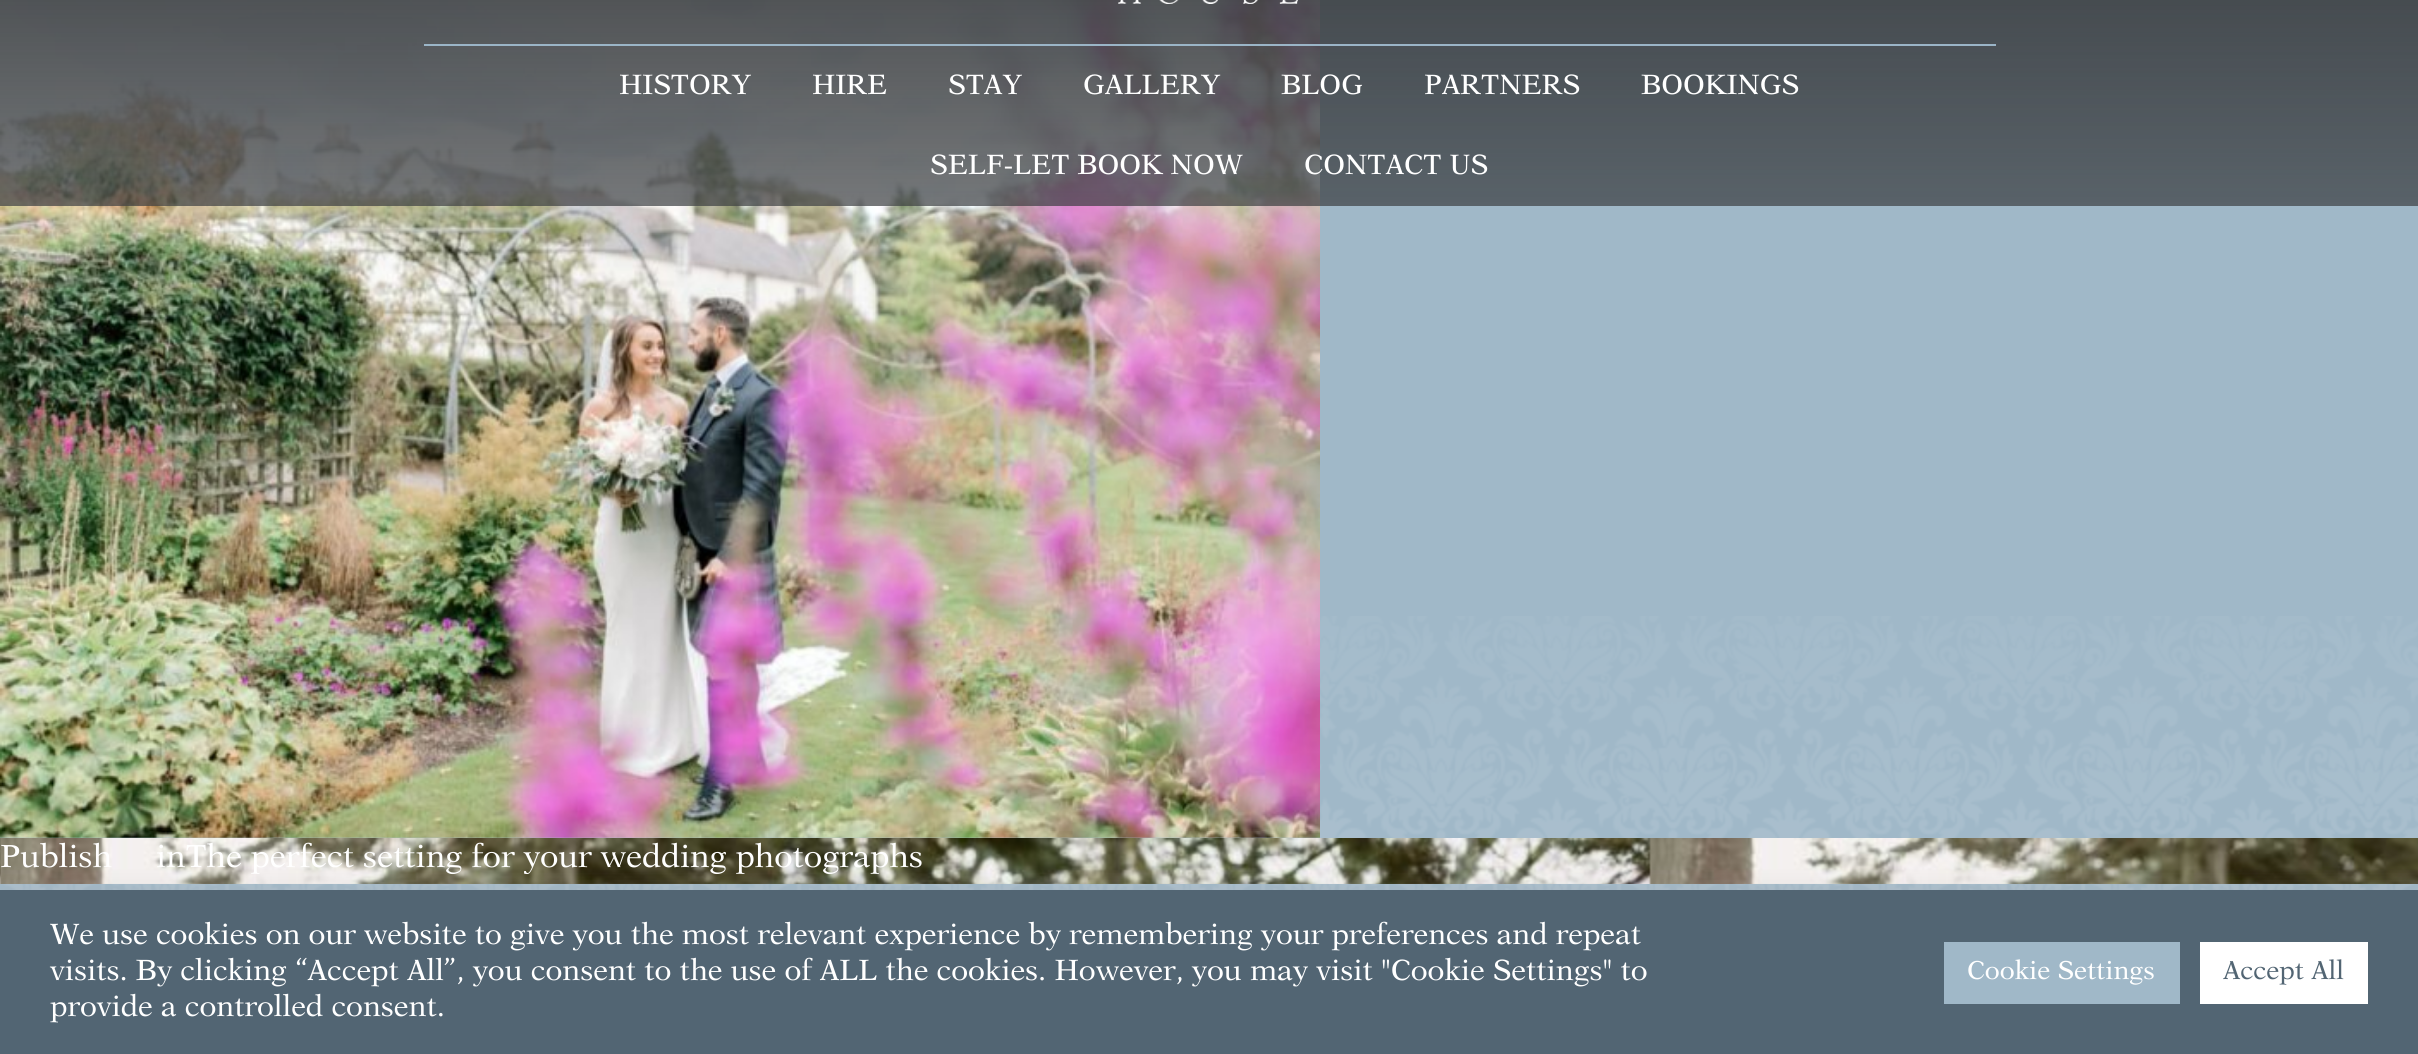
import math
import cairo



def rounded_rect(context, x, y, w, h, r):
    context.new_sub_path()
    for i, (u, v) in enumerate([(x + w - r, y + h - r), (x + r, y + h - r), (x + r, y + r), (x + w - r, y + r)]):
        context.arc(u, v, r, i * math.pi / 2, (i + 1) * math.pi / 2)
    context.close_path()


def draw_shadow(context, x, y, w, h, r, blur, alpha):
    context.push_group_with_content(cairo.Content.ALPHA)
    context.set_operator(cairo.Operator.SOURCE)
    for i in range(15, -16, -2):
        e = blur * i / 6
        if min(w, h) + 2 * e > 0:
            context.set_source_rgba(0, 0, 0, alpha * math.erfc((i - 1) / 8.5) / 2)
            rounded_rect(context, x - e, y - e, w + 2 * e, h + 2 * e, max(0, min(r + e + blur * .6, min(w, h) / 2 + e)))
            context.fill()
    context.mask(context.pop_group())


def draw_image(context, path, x, y, w, h):
    context.save()
    context.set_source_surface(cairo.ImageSurface.create_from_png(path), x, y)
    context.rectangle(x, y, w, h)
    context.fill()
    context.restore()


def draw(context):
    context.set_source_rgb(160 / 255, 184 / 255, 200 / 255)
    context.paint()
    draw_image(context, "images/3.png", 0, 616, 2418, 274)
    draw_image(context, "images/2.png", 0, 0, 1320, 838)
    gradient = cairo.LinearGradient(1209, -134, 1209, 206)
    gradient.add_color_stop_rgba(0, 58 / 255, 61 / 255, 64 / 255, 1)
    gradient.add_color_stop_rgba(1, 58 / 255, 61 / 255, 64 / 255, 0.7)
    context.set_source(gradient)
    context.rectangle(0, 0, 2418, 206)
    context.fill()
    draw_image(context, "images/1.png", 1118, 0, 180, 4)
    context.set_source_rgb(155 / 255, 181 / 255, 199 / 255)
    context.rectangle(424, 44, 1572, 2)
    context.fill()
    draw_image(context, "images/4.png", 0, 838, 2418, 46)
    context.set_source_rgb(172 / 255, 171 / 255, 171 / 255)
    draw_shadow(context, 0, 888, 2418, 164, 0, 10, 0.3)
    context.set_source_rgb(82 / 255, 101 / 255, 115 / 255)
    context.rectangle(0, 890, 2418, 164)
    context.fill()
    context.set_source_rgb(160 / 255, 184 / 255, 200 / 255)
    context.rectangle(1944, 942, 236, 62)
    context.fill()
    context.set_source_rgb(1, 1, 1)
    context.rectangle(2200, 942, 168, 62)
    context.fill()
    context.select_font_face("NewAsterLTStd")
    context.set_font_size(28)
    context.move_to(619, 94)
    context.show_text("HISTORY")
    context.move_to(812, 94)
    context.show_text("HIRE")
    context.move_to(948, 94)
    context.show_text("STAY")
    context.move_to(1083, 94)
    context.show_text("GALLERY")
    context.move_to(1281, 94)
    context.show_text("BLOG")
    context.move_to(1424, 94)
    context.show_text("PARTNERS")
    context.move_to(1641, 94)
    context.show_text("BOOKINGS")
    context.move_to(930, 174)
    context.show_text("SELF-LET BOOK NOW")
    context.move_to(1304, 174)
    context.show_text("CONTACT US")
    context.set_font_size(32)
    context.move_to(0, 867)
    context.show_text("Publish")
    context.move_to(156, 867)
    context.show_text("inThe perfect setting for your wedding photographs")
    context.set_font_size(29.33)
    context.move_to(50, 944)
    context.show_text("We use cookies on our website to give you the most relevant experience by remembering your preferences and repeat")
    context.move_to(50, 980)
    context.show_text("visits. By clicking “Accept All”, you consent to the use of ALL the cookies. However, you may visit \"Cookie Settings\" to")
    context.move_to(50, 1016)
    context.show_text("provide a controlled consent.")
    context.set_font_size(26)
    context.move_to(1967, 979)
    context.show_text("Cookie Settings")
    context.set_source_rgb(82 / 255, 101 / 255, 115 / 255)
    context.move_to(2223, 979)
    context.show_text("Accept All")


surface = cairo.ImageSurface(cairo.Format.RGB24, 2418, 1054)
context = cairo.Context(surface)
options = cairo.FontOptions()
options.set_hint_metrics(cairo.HintMetrics.OFF)
options.set_hint_style(cairo.HintStyle.NONE)
context.set_font_options(options)
context.set_miter_limit(4)
draw(context)
surface.write_to_png("out.png")
